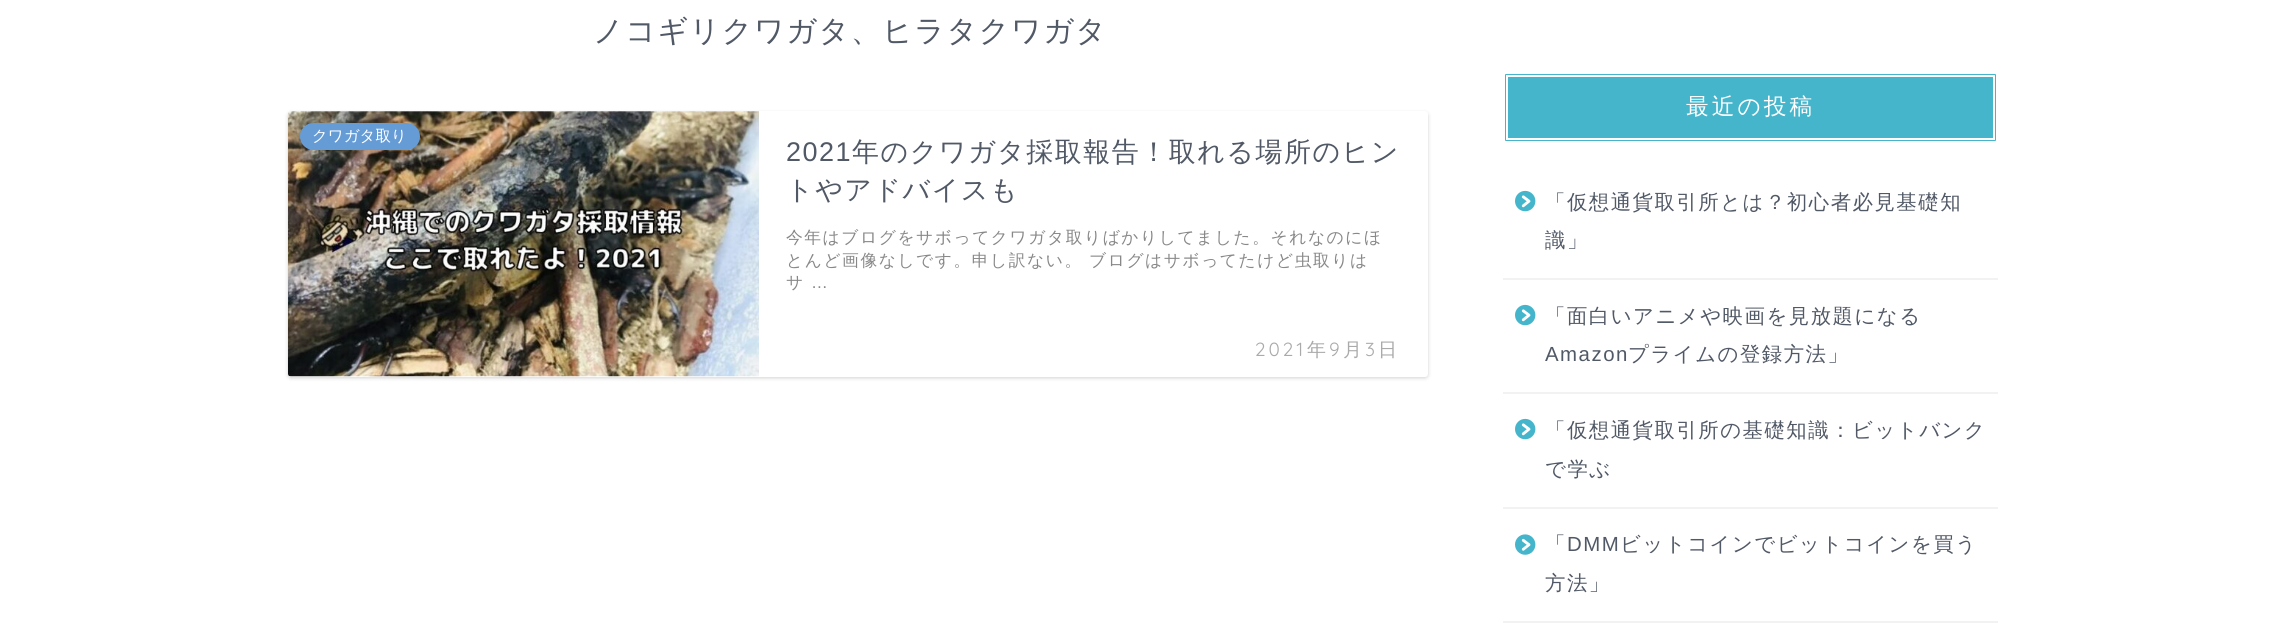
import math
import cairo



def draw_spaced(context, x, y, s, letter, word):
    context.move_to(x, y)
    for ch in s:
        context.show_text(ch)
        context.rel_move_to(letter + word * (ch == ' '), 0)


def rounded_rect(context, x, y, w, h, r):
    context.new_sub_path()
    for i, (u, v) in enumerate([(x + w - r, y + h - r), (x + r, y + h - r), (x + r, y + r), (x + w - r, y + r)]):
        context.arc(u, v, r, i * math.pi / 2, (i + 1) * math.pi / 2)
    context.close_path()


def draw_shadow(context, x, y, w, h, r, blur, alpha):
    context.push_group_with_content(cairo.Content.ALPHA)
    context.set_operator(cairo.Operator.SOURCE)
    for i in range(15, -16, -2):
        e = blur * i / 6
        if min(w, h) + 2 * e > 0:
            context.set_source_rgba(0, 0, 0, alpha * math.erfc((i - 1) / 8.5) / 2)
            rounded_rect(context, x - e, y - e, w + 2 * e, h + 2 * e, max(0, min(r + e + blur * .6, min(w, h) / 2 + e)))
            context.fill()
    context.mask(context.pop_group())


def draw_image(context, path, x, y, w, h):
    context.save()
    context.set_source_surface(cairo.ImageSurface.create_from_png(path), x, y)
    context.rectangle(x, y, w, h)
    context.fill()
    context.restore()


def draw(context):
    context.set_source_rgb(1, 1, 1)
    context.paint()
    context.set_source_rgb(0, 0, 0)
    draw_shadow(context, 288, 113, 1140, 265, 3, 2, 0.18)
    context.set_source_rgb(1, 1, 1)
    rounded_rect(context, 288, 111, 1140, 266, 3)
    context.fill()
    draw_image(context, "images/1.png", 288, 111, 471, 266)
    context.set_source_rgb(102 / 255, 156 / 255, 214 / 255)
    rounded_rect(context, 300, 123, 120, 27, 13.5)
    context.fill()
    context.set_source_rgb(69 / 255, 181 / 255, 204 / 255)
    rounded_rect(context, 1504, 73, 493, 69, 2)
    context.fill_preserve()
    context.set_source_rgb(1, 1, 1)
    context.stroke()
    context.rectangle(1507, 76, 487, 63)
    context.stroke()
    context.set_source_rgb(242 / 255, 242 / 255, 242 / 255)
    context.rectangle(1503, 278, 495, 2)
    context.fill()
    draw_image(context, "images/2.png", 1515, 190, 21, 22)
    context.rectangle(1503, 392, 495, 2)
    context.fill()
    draw_image(context, "images/2.png", 1515, 304, 21, 22)
    context.rectangle(1503, 507, 495, 2)
    context.fill()
    draw_image(context, "images/2.png", 1515, 418, 21, 22)
    context.rectangle(1503, 621, 495, 2)
    context.fill()
    draw_image(context, "images/3.png", 1515, 534, 21, 21)
    context.select_font_face("WenQuanYi Zen Hei Medium")
    context.set_font_size(30)
    context.set_source_rgb(81 / 255, 89 / 255, 102 / 255)
    draw_spaced(context, 593, 41, "ノコギリクワガタ、ヒラタクワガタ", 1.5, 0)
    context.set_font_size(15.5)
    context.set_source_rgb(1, 1, 1)
    context.move_to(312, 141)
    context.show_text("クワガタ取り")
    context.select_font_face("Liberation Sans")
    context.set_font_size(27)
    context.set_source_rgb(81 / 255, 89 / 255, 102 / 255)
    draw_spaced(context, 786, 161, "2021", 1.5, 0)
    context.select_font_face("WenQuanYi Zen Hei Medium")
    draw_spaced(context, 852, 161, "年のクワガタ採取報告！取れる場所のヒン", 1.5, 0)
    draw_spaced(context, 786, 199, "トやアドバイスも", 1.5, 0)
    context.set_font_size(16.8)
    context.set_source_rgb(136 / 255, 136 / 255, 136 / 255)
    draw_spaced(context, 786, 243, "今年はブログをサボってクワガタ取りばかりしてました。それなのにほ", 1.5, 0)
    draw_spaced(context, 786, 266, "とんど画像なしです。申し訳ない。", 1.5, 0)
    draw_spaced(context, 1089, 266, "ブログはサボってたけど虫取りは", 1.5, 0)
    draw_spaced(context, 786, 288, "サ", 1.5, 0)
    context.select_font_face("Liberation Sans")
    draw_spaced(context, 811, 288, "…", 1.5, 0)
    context.select_font_face("Quicksand Light")
    context.set_font_size(19)
    context.set_source_rgb(170 / 255, 170 / 255, 170 / 255)
    draw_spaced(context, 1255, 356, "2021", 3, 0)
    context.select_font_face("WenQuanYi Zen Hei Medium")
    draw_spaced(context, 1307, 356, "年", 3, 0)
    context.select_font_face("Quicksand Light")
    draw_spaced(context, 1329, 356, "9", 3, 0)
    context.select_font_face("WenQuanYi Zen Hei Medium")
    draw_spaced(context, 1343, 356, "月", 3, 0)
    context.select_font_face("Quicksand Light")
    draw_spaced(context, 1365, 356, "3", 3, 0)
    context.select_font_face("WenQuanYi Zen Hei Medium")
    draw_spaced(context, 1378, 356, "日", 3, 0)
    context.set_font_size(22.75)
    context.set_source_rgb(1, 1, 1)
    draw_spaced(context, 1686, 114, "最近の投稿", 3, 0)
    context.set_font_size(20.4)
    context.set_source_rgb(81 / 255, 89 / 255, 102 / 255)
    draw_spaced(context, 1545, 209, "「仮想通貨取引所とは？初心者必見基礎知", 1.5, 0)
    draw_spaced(context, 1545, 247, "識」", 1.5, 0)
    draw_spaced(context, 1545, 323, "「面白いアニメや映画を見放題になる", 1.5, 0)
    context.select_font_face("Liberation Sans")
    draw_spaced(context, 1545, 361, "Amazon", 1.5, 0)
    context.select_font_face("WenQuanYi Zen Hei Medium")
    draw_spaced(context, 1628, 361, "プライムの登録方法」", 1.5, 0)
    draw_spaced(context, 1545, 437, "「仮想通貨取引所の基礎知識：ビットバンク", 1.5, 0)
    draw_spaced(context, 1545, 476, "で学ぶ", 1.5, 0)
    draw_spaced(context, 1545, 551, "「", 1.5, 0)
    context.select_font_face("Liberation Sans")
    draw_spaced(context, 1567, 551, "DMM", 1.5, 0)
    context.select_font_face("WenQuanYi Zen Hei Medium")
    draw_spaced(context, 1620, 551, "ビットコインでビットコインを買う", 1.5, 0)
    draw_spaced(context, 1545, 590, "方法」", 1.5, 0)


surface = cairo.ImageSurface(cairo.Format.RGB24, 2285, 632)
context = cairo.Context(surface)
options = cairo.FontOptions()
options.set_hint_metrics(cairo.HintMetrics.OFF)
options.set_hint_style(cairo.HintStyle.NONE)
context.set_font_options(options)
context.set_miter_limit(4)
draw(context)
surface.write_to_png("out.png")
